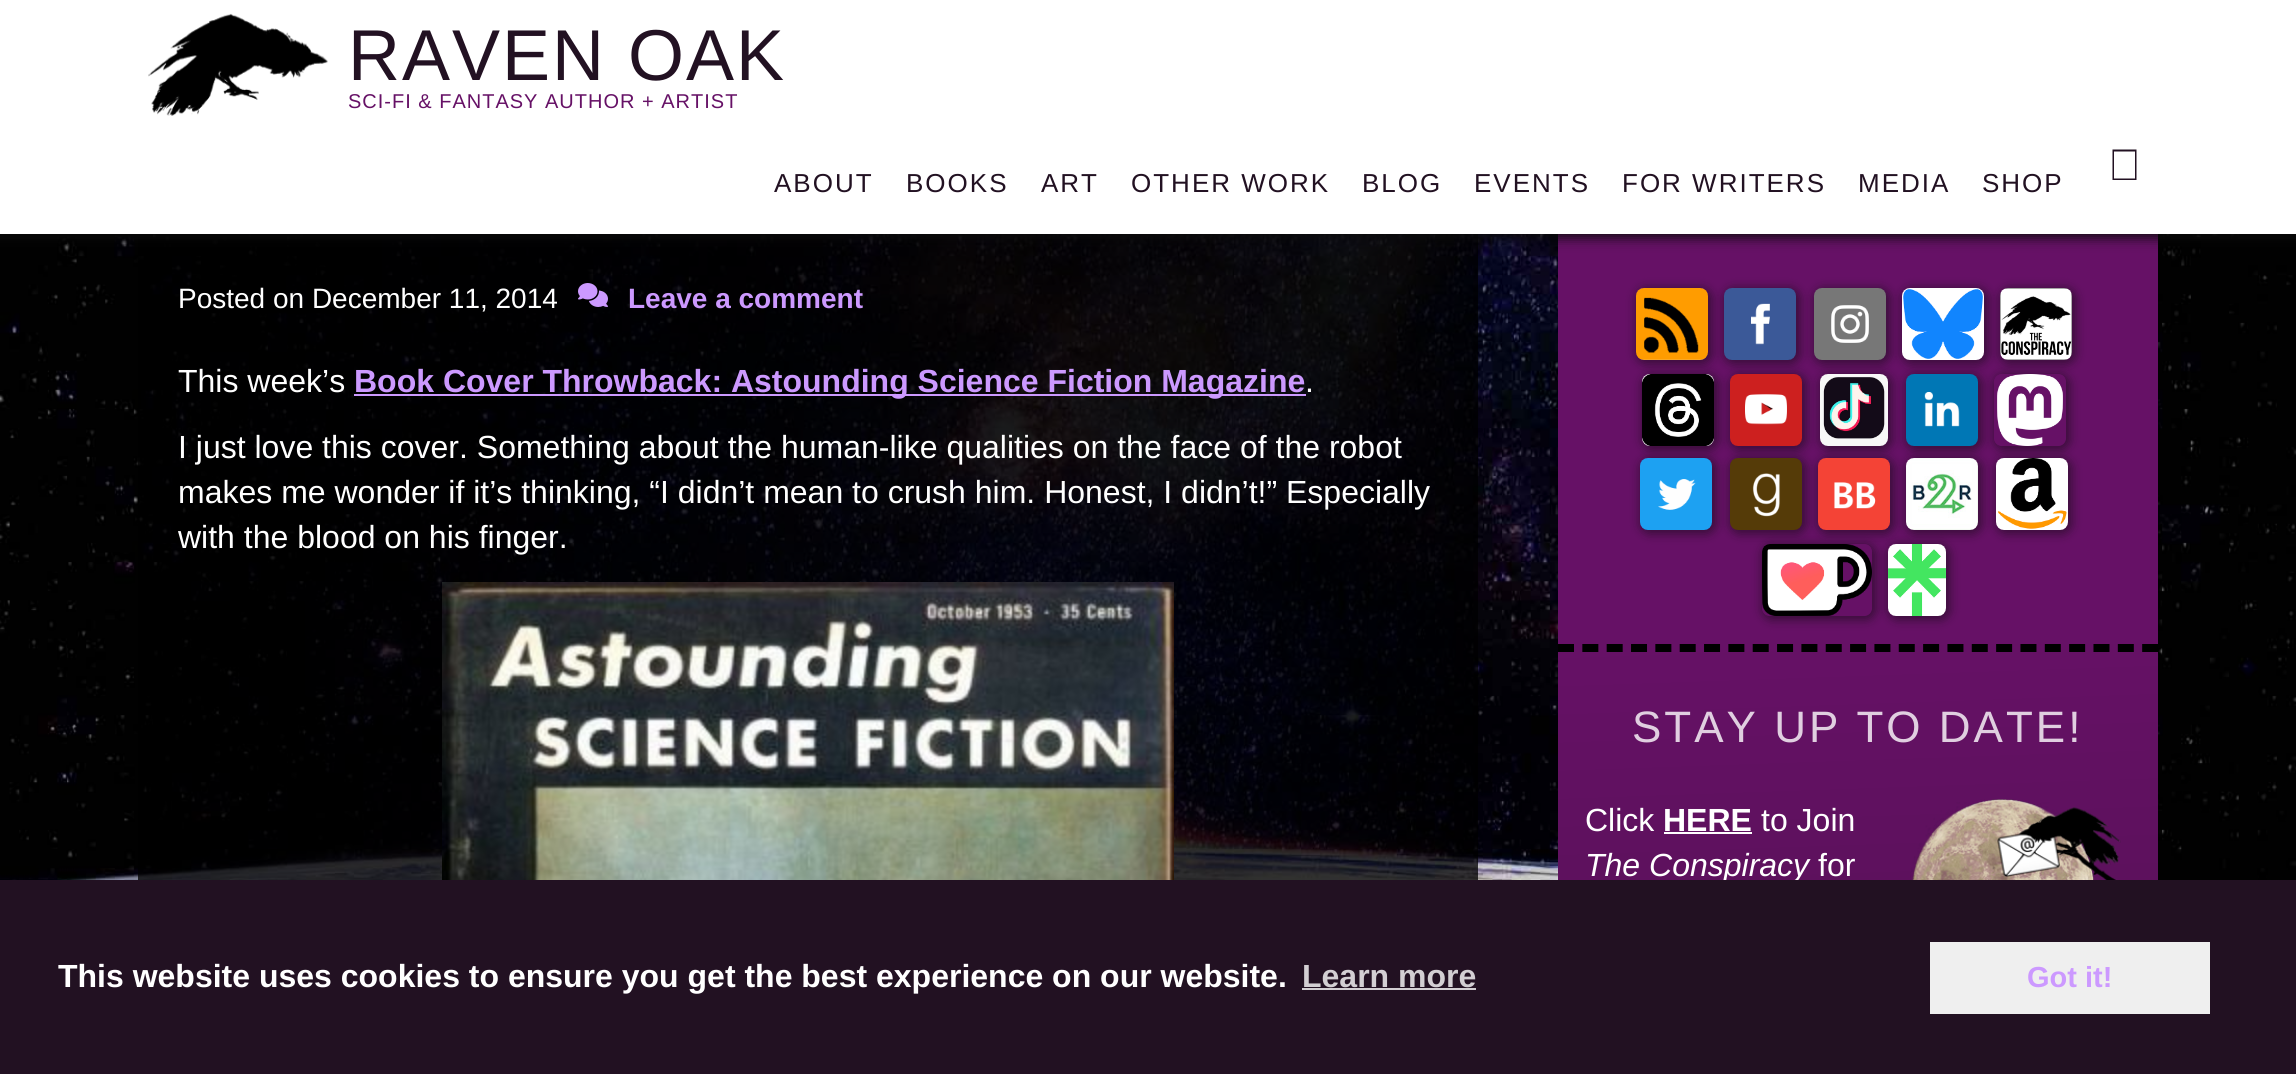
import math
import cairo



def draw_spaced(context, x, y, s, letter, word):
    context.move_to(x, y)
    for ch in s:
        context.show_text(ch)
        context.rel_move_to(letter + word * (ch == ' '), 0)


def rounded_rect(context, x, y, w, h, r):
    context.new_sub_path()
    for i, (u, v) in enumerate([(x + w - r, y + h - r), (x + r, y + h - r), (x + r, y + r), (x + w - r, y + r)]):
        context.arc(u, v, r, i * math.pi / 2, (i + 1) * math.pi / 2)
    context.close_path()


def draw_shadow(context, x, y, w, h, r, blur, alpha):
    context.push_group_with_content(cairo.Content.ALPHA)
    context.set_operator(cairo.Operator.SOURCE)
    for i in range(15, -16, -2):
        e = blur * i / 6
        if min(w, h) + 2 * e > 0:
            context.set_source_rgba(0, 0, 0, alpha * math.erfc((i - 1) / 8.5) / 2)
            rounded_rect(context, x - e, y - e, w + 2 * e, h + 2 * e, max(0, min(r + e + blur * .6, min(w, h) / 2 + e)))
            context.fill()
    context.mask(context.pop_group())


def draw_image(context, path, x, y, w, h):
    context.save()
    context.set_source_surface(cairo.ImageSurface.create_from_png(path), x, y)
    context.rectangle(x, y, w, h)
    context.fill()
    context.restore()


def draw(context):
    context.set_source_rgb(1, 1, 1)
    context.paint()
    draw_image(context, "images/1.png", 0, 234, 2296, 646)
    context.set_source_rgba(0, 0, 0, 0.76)
    context.rectangle(138, 234, 1340, 646)
    context.fill()
    context.set_source_rgb(102 / 255, 17 / 255, 102 / 255)
    context.rectangle(1558, 234, 600, 410)
    context.fill()
    context.set_source_rgb(10 / 255, 10 / 255, 10 / 255)
    draw_shadow(context, -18, 0, 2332, 238, 0, 6, 0.9)
    context.set_source_rgb(1, 1, 1)
    context.rectangle(0, 0, 2296, 234)
    context.fill()
    draw_image(context, "images/2.png", 148, 13, 180, 103)
    context.set_source_rgb(34 / 255, 17 / 255, 34 / 255)
    context.new_path()
    context.move_to(2112.5, 149.5)
    context.line_to(2136.5, 149.5)
    context.line_to(2136.5, 180)
    context.line_to(2112.5, 180)
    context.close_path()
    context.move_to(2114, 151.5)
    context.line_to(2114, 178.5)
    context.line_to(2135, 178.5)
    context.line_to(2135, 151.5)
    context.close_path()
    context.fill()
    draw_image(context, "images/3.png", 578, 283, 30, 24)
    context.set_source_rgb(204 / 255, 153 / 255, 1)
    context.rectangle(354, 394, 952, 2)
    context.fill()
    draw_image(context, "images/4.png", 442, 582, 732, 298)
    context.set_source_rgb(10 / 255, 10 / 255, 10 / 255)
    draw_shadow(context, 1636, 288, 76, 76, 10, 5, 0.5)
    draw_image(context, "images/5.png", 1636, 288, 72, 72)
    draw_shadow(context, 1724, 288, 76, 76, 10, 5, 0.5)
    draw_image(context, "images/6.png", 1724, 288, 72, 72)
    draw_shadow(context, 1814, 288, 76, 76, 10, 5, 0.5)
    draw_image(context, "images/7.png", 1814, 288, 72, 72)
    draw_shadow(context, 1902, 288, 86, 76, 10, 5, 0.5)
    draw_image(context, "images/8.png", 1902, 288, 82, 72)
    draw_shadow(context, 2000, 288, 76, 76, 10, 5, 0.5)
    draw_image(context, "images/9.png", 2000, 288, 72, 72)
    draw_shadow(context, 1642, 374, 76, 76, 10, 5, 0.5)
    draw_image(context, "images/10.png", 1642, 374, 72, 72)
    draw_shadow(context, 1730, 374, 76, 76, 10, 5, 0.5)
    draw_image(context, "images/11.png", 1730, 374, 72, 72)
    draw_shadow(context, 1820, 374, 72, 76, 10, 5, 0.5)
    draw_image(context, "images/12.png", 1820, 374, 68, 72)
    draw_shadow(context, 1906, 374, 76, 76, 10, 5, 0.5)
    draw_image(context, "images/13.png", 1906, 374, 72, 72)
    context.save()
    context.set_fill_rule(cairo.FillRule.EVEN_ODD)
    context.new_path()
    context.move_to(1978, 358)
    context.line_to(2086, 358)
    context.line_to(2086, 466)
    context.line_to(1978, 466)
    context.close_path()
    context.move_to(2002, 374)
    context.line_to(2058, 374)
    context.curve_to(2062.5, 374, 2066, 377.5, 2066, 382)
    context.line_to(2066, 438)
    context.curve_to(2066, 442.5, 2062.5, 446, 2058, 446)
    context.line_to(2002, 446)
    context.curve_to(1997.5, 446, 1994, 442.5, 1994, 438)
    context.line_to(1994, 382)
    context.curve_to(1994, 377.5, 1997.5, 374, 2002, 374)
    context.close_path()
    context.clip()
    draw_shadow(context, 1994, 374, 76, 76, 10, 5, 0.5)
    context.restore()
    draw_image(context, "images/14.png", 1997, 374, 66, 72)
    draw_shadow(context, 1640, 458, 76, 76, 10, 5, 0.5)
    draw_image(context, "images/15.png", 1640, 458, 72, 72)
    draw_shadow(context, 1730, 458, 76, 76, 10, 5, 0.5)
    draw_image(context, "images/16.png", 1730, 458, 72, 72)
    draw_shadow(context, 1818, 458, 76, 76, 10, 5, 0.5)
    draw_image(context, "images/17.png", 1818, 458, 72, 72)
    draw_shadow(context, 1906, 458, 76, 76, 10, 5, 0.5)
    draw_image(context, "images/18.png", 1906, 458, 72, 72)
    draw_shadow(context, 1996, 458, 76, 76, 10, 5, 0.5)
    draw_image(context, "images/19.png", 1996, 458, 72, 72)
    context.save()
    context.set_fill_rule(cairo.FillRule.EVEN_ODD)
    context.new_path()
    context.move_to(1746, 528)
    context.line_to(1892, 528)
    context.line_to(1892, 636)
    context.line_to(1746, 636)
    context.close_path()
    context.move_to(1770, 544)
    context.line_to(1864, 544)
    context.curve_to(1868.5, 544, 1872, 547.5, 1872, 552)
    context.line_to(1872, 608)
    context.curve_to(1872, 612.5, 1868.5, 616, 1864, 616)
    context.line_to(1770, 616)
    context.curve_to(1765.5, 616, 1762, 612.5, 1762, 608)
    context.line_to(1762, 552)
    context.curve_to(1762, 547.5, 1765.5, 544, 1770, 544)
    context.close_path()
    context.clip()
    draw_shadow(context, 1762, 544, 114, 76, 10, 5, 0.5)
    context.restore()
    draw_image(context, "images/20.png", 1762, 544, 110, 72)
    draw_shadow(context, 1888, 544, 62, 76, 10, 5, 0.5)
    draw_image(context, "images/21.png", 1888, 544, 58, 72)
    gradient = cairo.LinearGradient(1891, 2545, 1825, 635)
    gradient.add_color_stop_rgba(0, 51 / 255, 17 / 255, 51 / 255, 1)
    gradient.add_color_stop_rgba(0.5, 68 / 255, 17 / 255, 68 / 255, 1)
    gradient.add_color_stop_rgba(1, 102 / 255, 17 / 255, 102 / 255, 1)
    context.set_source(gradient)
    context.rectangle(1558, 644, 600, 236)
    context.fill()
    context.new_path()
    context.move_to(1558, 648)
    context.line_to(2158, 648)
    context.set_source_rgb(0, 0, 0)
    context.set_line_width(8)
    context.set_dash([16, 8.34])
    context.stroke()
    context.set_source_rgb(1, 1, 1)
    context.rectangle(1664, 832, 88, 2)
    context.fill()
    draw_image(context, "images/22.png", 1910, 799, 211, 81)
    context.select_font_face("Liberation Sans")
    context.set_font_size(72)
    context.set_source_rgb(34 / 255, 17 / 255, 34 / 255)
    draw_spaced(context, 348, 80, "RAVEN OAK", 2, 0)
    context.set_font_size(20)
    context.set_source_rgb(102 / 255, 17 / 255, 102 / 255)
    draw_spaced(context, 348, 108, "SCI-FI & FANTASY AUTHOR + ARTIST", 1, 0)
    context.set_font_size(26)
    context.set_source_rgb(34 / 255, 17 / 255, 34 / 255)
    draw_spaced(context, 774, 192, "ABOUT", 2, 0)
    draw_spaced(context, 906, 192, "BOOKS", 2, 0)
    draw_spaced(context, 1041, 192, "ART", 2, 0)
    draw_spaced(context, 1131, 192, "OTHER WORK", 2, 0)
    draw_spaced(context, 1362, 192, "BLOG", 2, 0)
    draw_spaced(context, 1474, 192, "EVENTS", 2, 0)
    draw_spaced(context, 1622, 192, "FOR WRITERS", 2, 0)
    draw_spaced(context, 1858, 192, "MEDIA", 2, 0)
    draw_spaced(context, 1982, 192, "SHOP", 2, 0)
    context.set_font_size(28)
    context.set_source_rgb(1, 1, 1)
    context.move_to(178, 308)
    context.show_text("Posted on December 11, 2014")
    context.select_font_face("Liberation Sans", cairo.FontSlant.NORMAL, cairo.FontWeight.BOLD)
    context.set_source_rgb(204 / 255, 153 / 255, 1)
    context.move_to(628, 308)
    context.show_text("Leave a comment")
    context.select_font_face("Liberation Sans")
    context.set_font_size(32)
    context.set_source_rgb(1, 1, 1)
    context.move_to(178, 392)
    context.show_text("This week’s")
    context.select_font_face("Liberation Sans", cairo.FontSlant.NORMAL, cairo.FontWeight.BOLD)
    context.set_source_rgb(204 / 255, 153 / 255, 1)
    context.move_to(354, 392)
    context.show_text("Book Cover Throwback: Astounding Science Fiction Magazine")
    context.select_font_face("Liberation Sans")
    context.set_source_rgb(1, 1, 1)
    context.move_to(1305, 392)
    context.show_text(".")
    context.move_to(178, 458)
    context.show_text("I just love this cover. Something about the human-like qualities on the face of the robot")
    context.move_to(178, 503)
    context.show_text("makes me wonder if it’s thinking, “I didn’t mean to crush him. Honest, I didn’t!” Especially")
    context.move_to(178, 548)
    context.show_text("with the blood on his finger.")
    context.set_font_size(44)
    context.set_source_rgb(224 / 255, 207 / 255, 224 / 255)
    draw_spaced(context, 1632, 742, "STAY UP TO DATE!", 3, 0)
    context.set_font_size(32)
    context.set_source_rgb(1, 1, 1)
    context.move_to(1585, 831)
    context.show_text("Click")
    context.select_font_face("Liberation Sans", cairo.FontSlant.NORMAL, cairo.FontWeight.BOLD)
    context.move_to(1663, 831)
    context.show_text("HERE")
    context.select_font_face("Liberation Sans")
    context.move_to(1761, 831)
    context.show_text("to Join")
    context.select_font_face("Liberation Sans", cairo.FontSlant.ITALIC)
    context.move_to(1585, 876)
    context.show_text("The Conspiracy")
    context.select_font_face("Liberation Sans")
    context.move_to(1818, 876)
    context.show_text("for")
    context.set_source_rgb(34 / 255, 17 / 255, 34 / 255)
    context.rectangle(0, 880, 2296, 194)
    context.fill()
    context.select_font_face("Liberation Sans", cairo.FontSlant.NORMAL, cairo.FontWeight.BOLD)
    context.set_source_rgb(1, 1, 1)
    context.move_to(58, 987)
    context.show_text("This website uses cookies to ensure you get the best experience on our website.")
    context.set_source_rgb(211 / 255, 207 / 255, 211 / 255)
    context.move_to(1302, 987)
    context.show_text("Learn more")
    context.rectangle(1302, 988, 174, 2)
    context.fill()
    context.set_source_rgb(239 / 255, 239 / 255, 239 / 255)
    context.rectangle(1930, 942, 280, 72)
    context.fill()
    context.set_font_size(29)
    context.set_source_rgb(204 / 255, 153 / 255, 1)
    context.move_to(2027, 987)
    context.show_text("Got it!")


surface = cairo.ImageSurface(cairo.Format.RGB24, 2296, 1074)
context = cairo.Context(surface)
options = cairo.FontOptions()
options.set_hint_metrics(cairo.HintMetrics.OFF)
options.set_hint_style(cairo.HintStyle.NONE)
context.set_font_options(options)
context.set_miter_limit(4)
draw(context)
surface.write_to_png("out.png")
